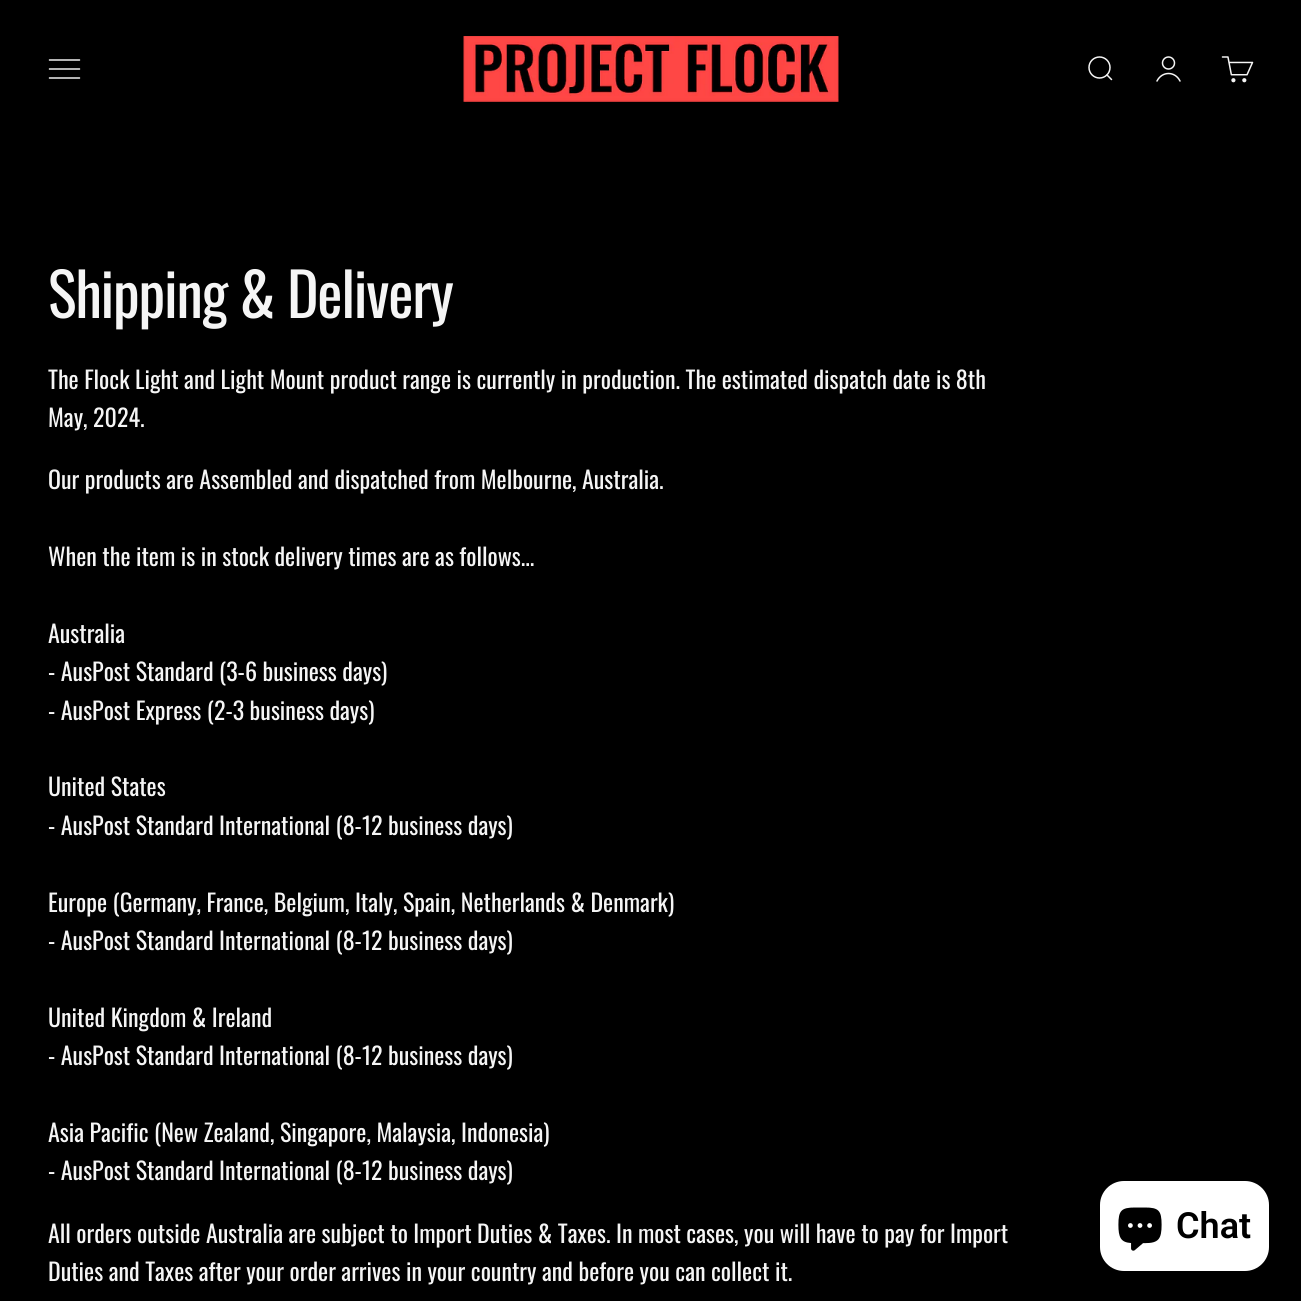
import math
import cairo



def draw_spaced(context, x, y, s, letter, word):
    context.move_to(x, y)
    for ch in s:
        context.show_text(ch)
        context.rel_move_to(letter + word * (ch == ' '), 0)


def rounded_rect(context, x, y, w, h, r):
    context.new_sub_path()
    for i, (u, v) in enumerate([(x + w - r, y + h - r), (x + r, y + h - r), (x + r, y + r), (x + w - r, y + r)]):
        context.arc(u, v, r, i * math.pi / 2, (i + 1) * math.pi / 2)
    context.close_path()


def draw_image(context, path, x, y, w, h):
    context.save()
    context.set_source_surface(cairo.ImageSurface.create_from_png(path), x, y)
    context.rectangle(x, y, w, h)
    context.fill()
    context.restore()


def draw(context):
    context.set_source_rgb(0, 0, 0)
    context.paint()
    context.new_path()
    context.move_to(49.5, 60)
    context.line_to(79.5, 60)
    context.move_to(49.5, 69)
    context.line_to(79.5, 69)
    context.move_to(49.5, 78)
    context.line_to(79.5, 78)
    context.set_source_rgb(245 / 255, 245 / 255, 245 / 255)
    context.set_line_width(1.5)
    context.set_line_cap(cairo.LineCap.ROUND)
    context.stroke()
    draw_image(context, "images/1.png", 463, 36, 376, 66)
    context.arc(1099.5, 67.5, 10.5, 0, 2 * math.pi)
    context.set_line_cap(cairo.LineCap.BUTT)
    context.stroke()
    context.new_path()
    context.move_to(1107, 75)
    context.line_to(1111.5, 79.5)
    context.set_line_cap(cairo.LineCap.ROUND)
    context.set_line_join(cairo.LineJoin.ROUND)
    context.stroke()
    context.arc(1168.5, 63, 6, 0, 2 * math.pi)
    context.set_line_cap(cairo.LineCap.BUTT)
    context.set_line_join(cairo.LineJoin.MITER)
    context.stroke()
    context.new_path()
    context.move_to(1157, 81)
    context.curve_to(1162, 71, 1175, 71, 1180, 81)
    context.set_line_cap(cairo.LineCap.ROUND)
    context.stroke()
    draw_image(context, "images/2.png", 1221, 56, 33, 27)
    context.set_source_rgb(1, 1, 1)
    rounded_rect(context, 1100, 1181, 169, 90, 24)
    context.fill()
    draw_image(context, "images/3.png", 1118, 1207, 44, 44)
    context.select_font_face("Oswald")
    context.set_font_size(60)
    context.set_source_rgb(245 / 255, 245 / 255, 245 / 255)
    draw_spaced(context, 48, 318, "Shipping & Delivery", -1.25, 0)
    context.set_font_size(24)
    context.move_to(48, 389)
    context.show_text("The Flock Light and Light Mount product range is currently in production. The estimated dispatch date is 8th")
    context.move_to(48, 427)
    context.show_text("May, 2024.")
    context.move_to(48, 489)
    context.show_text("Our products are Assembled and dispatched from Melbourne, Australia.")
    context.move_to(48, 566)
    context.show_text("When the item is in stock delivery times are as follows...")
    context.move_to(48, 643)
    context.show_text("Australia")
    context.move_to(48, 681)
    context.show_text("- AusPost Standard (3-6 business days)")
    context.move_to(48, 720)
    context.show_text("- AusPost Express (2-3 business days)")
    context.move_to(48, 796)
    context.show_text("United States")
    context.move_to(48, 835)
    context.show_text("- AusPost Standard International (8-12 business days)")
    context.move_to(48, 912)
    context.show_text("Europe (Germany, France, Belgium, Italy, Spain, Netherlands & Denmark)")
    context.move_to(48, 950)
    context.show_text("- AusPost Standard International (8-12 business days)")
    context.move_to(48, 1027)
    context.show_text("United Kingdom & Ireland")
    context.move_to(48, 1065)
    context.show_text("- AusPost Standard International (8-12 business days)")
    context.move_to(48, 1142)
    context.show_text("Asia Pacific (New Zealand, Singapore, Malaysia, Indonesia)")
    context.move_to(48, 1180)
    context.show_text("- AusPost Standard International (8-12 business days)")
    context.move_to(48, 1243)
    context.show_text("All orders outside Australia are subject to Import Duties & Taxes. In most cases, you will have to pay for Import")
    context.move_to(48, 1281)
    context.show_text("Duties and Taxes after your order arrives in your country and before you can collect it.")
    context.select_font_face("Roboto SemiBold")
    context.set_font_size(36)
    context.set_source_rgb(0, 0, 0)
    context.move_to(1176, 1238)
    context.show_text("Chat")


surface = cairo.ImageSurface(cairo.Format.RGB24, 1301, 1301)
context = cairo.Context(surface)
options = cairo.FontOptions()
options.set_hint_metrics(cairo.HintMetrics.OFF)
options.set_hint_style(cairo.HintStyle.NONE)
context.set_font_options(options)
context.set_miter_limit(4)
draw(context)
surface.write_to_png("out.png")
